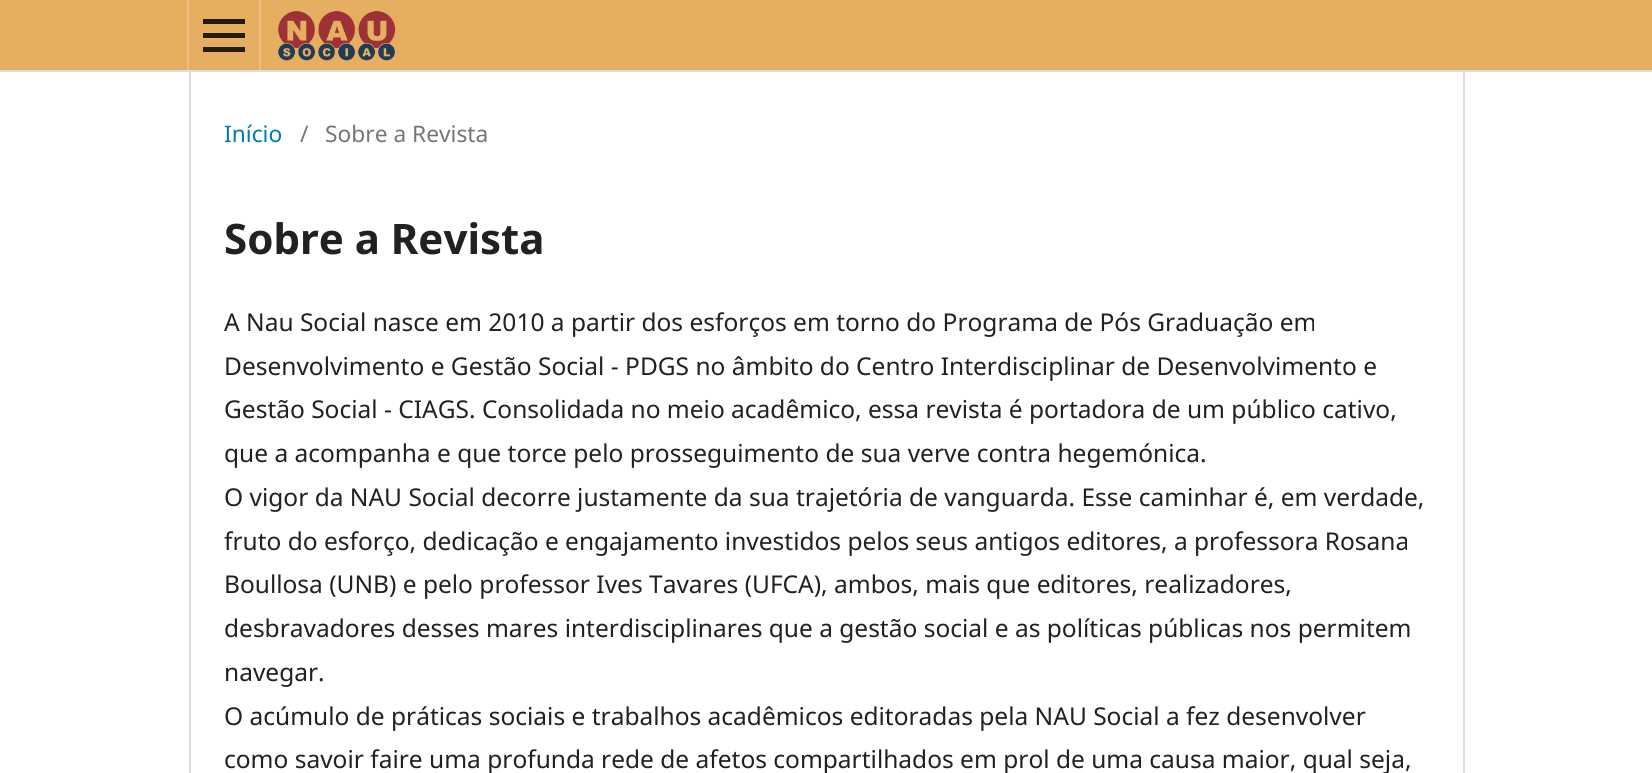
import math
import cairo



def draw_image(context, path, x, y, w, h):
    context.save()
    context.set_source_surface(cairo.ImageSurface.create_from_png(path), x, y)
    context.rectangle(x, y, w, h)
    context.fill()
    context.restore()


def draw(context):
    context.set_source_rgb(1, 1, 1)
    context.paint()
    context.set_source_rgb(229 / 255, 174 / 255, 97 / 255)
    context.rectangle(0, 0, 1652, 70)
    context.fill()
    context.set_source_rgb(221 / 255, 221 / 255, 221 / 255)
    context.rectangle(0, 70, 1652, 2)
    context.fill()
    context.set_source_rgb(234 / 255, 190 / 255, 129 / 255)
    context.rectangle(187, 0, 2, 70)
    context.fill()
    context.rectangle(259, 0, 2, 70)
    context.fill()
    context.set_source_rgb(37 / 255, 28 / 255, 16 / 255)
    context.rectangle(203, 47, 42, 5)
    context.fill()
    context.rectangle(203, 19, 42, 5)
    context.fill()
    context.rectangle(203, 33, 42, 5)
    context.fill()
    draw_image(context, "images/1.png", 278, 10, 118, 51)
    context.set_source_rgb(221 / 255, 221 / 255, 221 / 255)
    context.rectangle(189, 72, 2, 701)
    context.fill()
    context.rectangle(1463, 72, 2, 701)
    context.fill()
    context.select_font_face("Noto Sans")
    context.set_font_size(22.75)
    context.set_source_rgb(0, 122 / 255, 178 / 255)
    context.move_to(224, 142)
    context.show_text("Início")
    context.set_source_rgb(117 / 255, 117 / 255, 117 / 255)
    context.move_to(300, 142)
    context.show_text("/")
    context.move_to(325, 142)
    context.show_text("Sobre a Revista")
    context.select_font_face("Noto Sans", cairo.FontSlant.NORMAL, cairo.FontWeight.BOLD)
    context.set_font_size(42)
    context.set_source_rgb(33 / 255, 33 / 255, 33 / 255)
    context.move_to(224, 254)
    context.show_text("Sobre a Revista")
    context.select_font_face("Noto Sans")
    context.set_font_size(24.5)
    context.move_to(224, 331)
    context.show_text("A Nau Social nasce em 2010 a partir dos esforços em torno do Programa de Pós Graduação em")
    context.move_to(224, 375)
    context.show_text("Desenvolvimento e Gestão Social - PDGS no âmbito do Centro Interdisciplinar de Desenvolvimento e")
    context.move_to(224, 418)
    context.show_text("Gestão Social - CIAGS. Consolidada no meio acadêmico, essa revista é portadora de um público cativo,")
    context.move_to(224, 462)
    context.show_text("que a acompanha e que torce pelo prosseguimento de sua verve contra hegemónica.")
    context.move_to(224, 506)
    context.show_text("O vigor da NAU Social decorre justamente da sua trajetória de vanguarda. Esse caminhar é, em verdade,")
    context.move_to(224, 550)
    context.show_text("fruto do esforço, dedicação e engajamento investidos pelos seus antigos editores, a professora Rosana")
    context.move_to(224, 593)
    context.show_text("Boullosa (UNB) e pelo professor Ives Tavares (UFCA), ambos, mais que editores, realizadores,")
    context.move_to(224, 637)
    context.show_text("desbravadores desses mares interdisciplinares que a gestão social e as políticas públicas nos permitem")
    context.move_to(224, 681)
    context.show_text("navegar.")
    context.move_to(224, 725)
    context.show_text("O acúmulo de práticas sociais e trabalhos acadêmicos editoradas pela NAU Social a fez desenvolver")
    context.move_to(224, 768)
    context.show_text("como savoir faire uma profunda rede de afetos compartilhados em prol de uma causa maior, qual seja,")


surface = cairo.ImageSurface(cairo.Format.RGB24, 1652, 773)
context = cairo.Context(surface)
options = cairo.FontOptions()
options.set_hint_metrics(cairo.HintMetrics.OFF)
options.set_hint_style(cairo.HintStyle.NONE)
context.set_font_options(options)
context.set_miter_limit(4)
draw(context)
surface.write_to_png("out.png")
